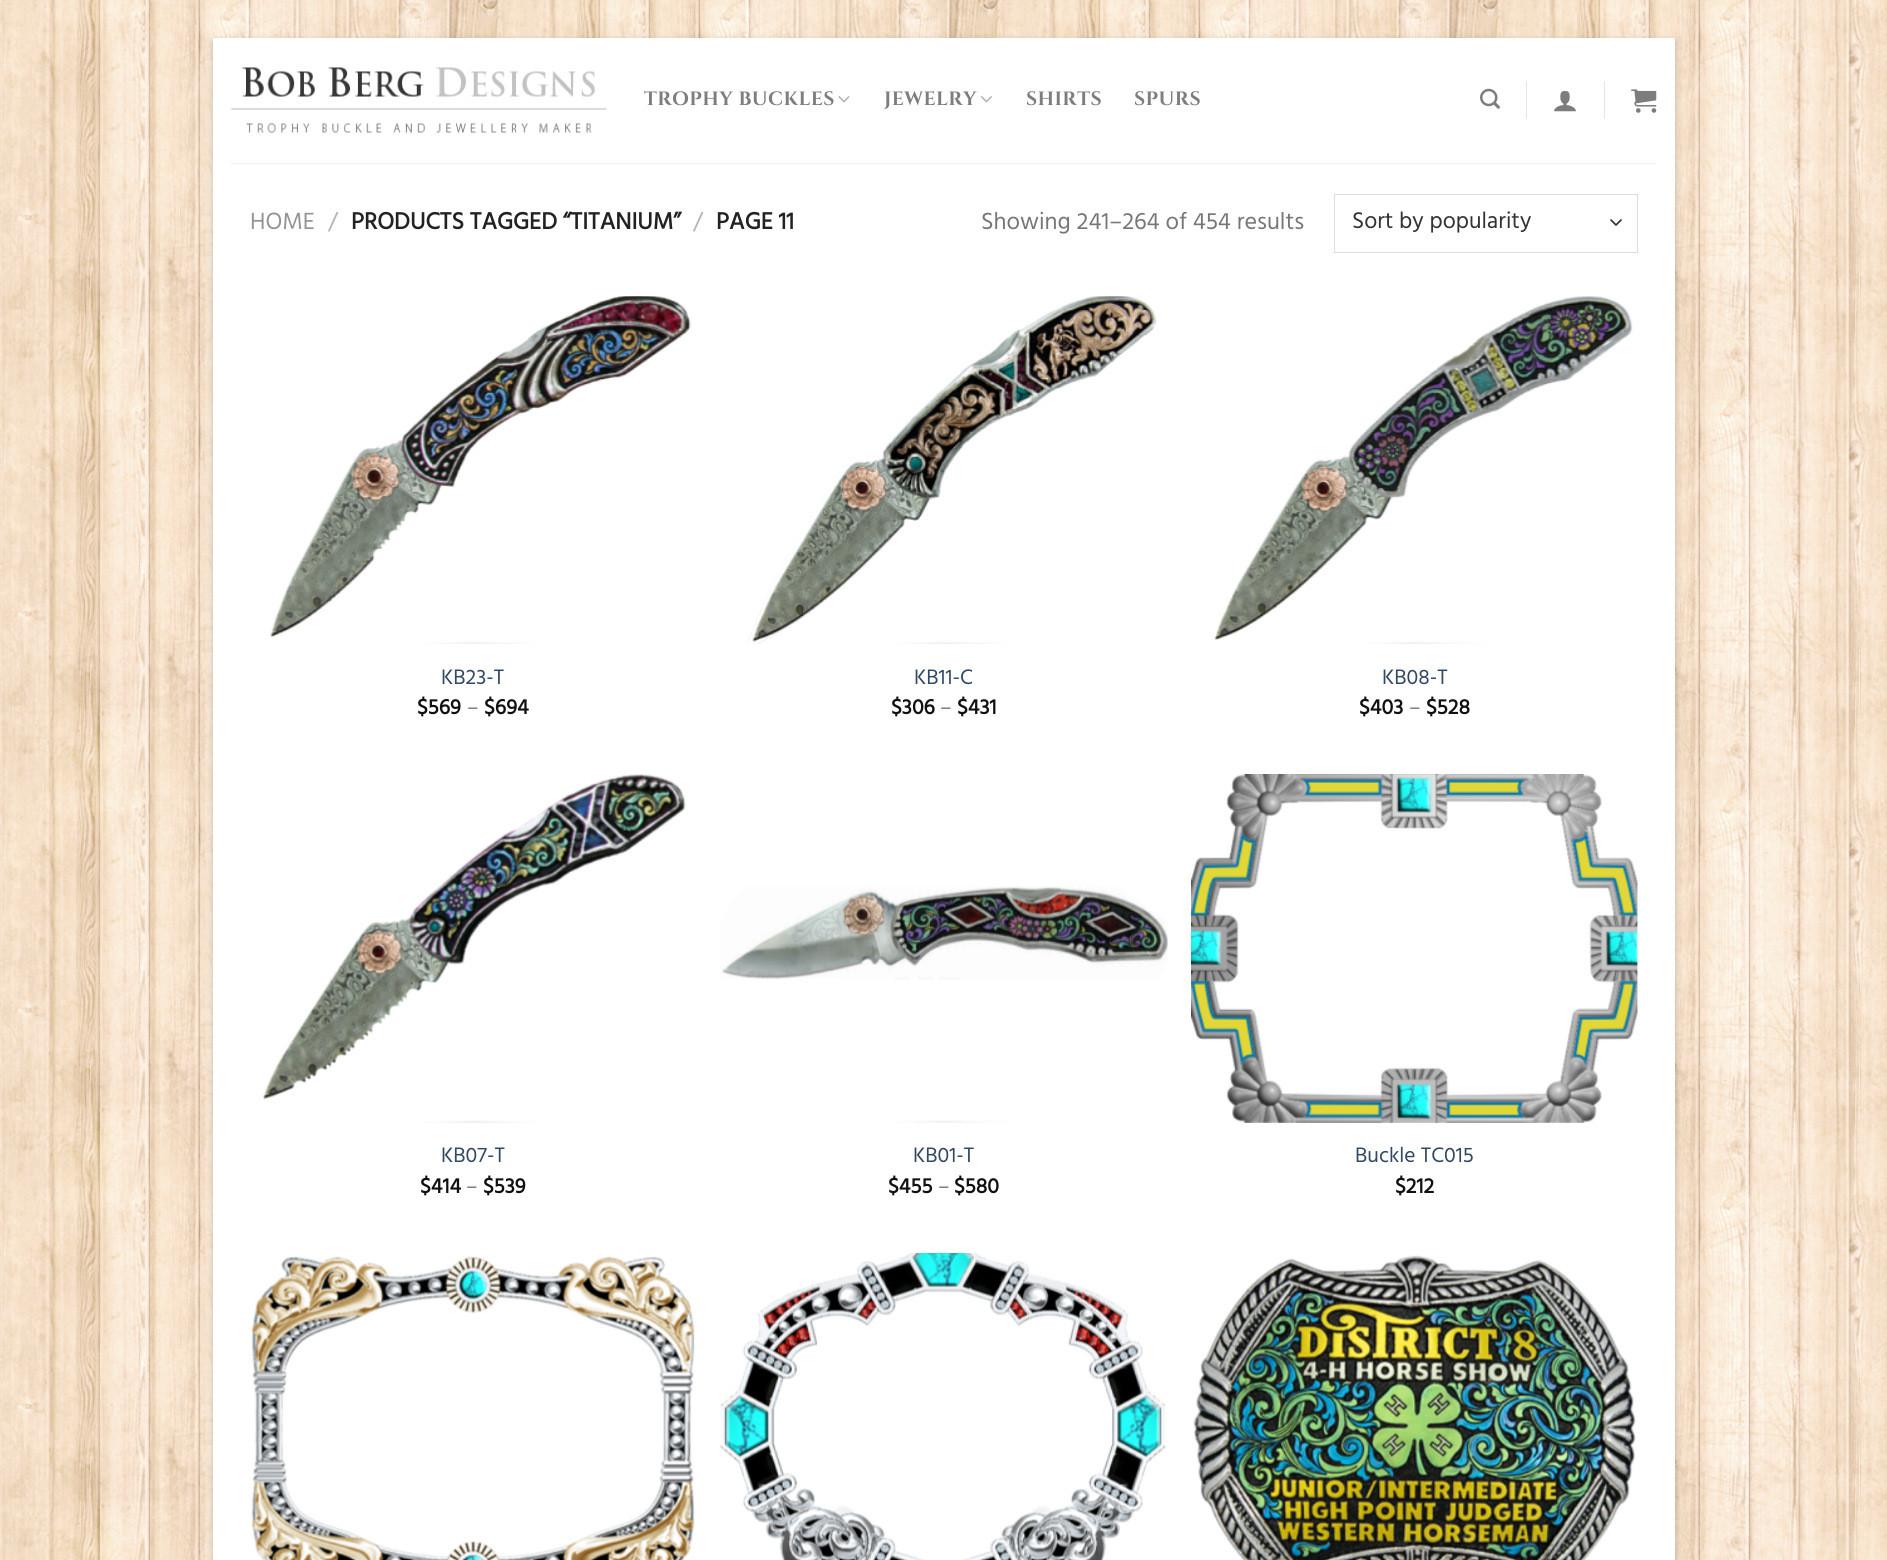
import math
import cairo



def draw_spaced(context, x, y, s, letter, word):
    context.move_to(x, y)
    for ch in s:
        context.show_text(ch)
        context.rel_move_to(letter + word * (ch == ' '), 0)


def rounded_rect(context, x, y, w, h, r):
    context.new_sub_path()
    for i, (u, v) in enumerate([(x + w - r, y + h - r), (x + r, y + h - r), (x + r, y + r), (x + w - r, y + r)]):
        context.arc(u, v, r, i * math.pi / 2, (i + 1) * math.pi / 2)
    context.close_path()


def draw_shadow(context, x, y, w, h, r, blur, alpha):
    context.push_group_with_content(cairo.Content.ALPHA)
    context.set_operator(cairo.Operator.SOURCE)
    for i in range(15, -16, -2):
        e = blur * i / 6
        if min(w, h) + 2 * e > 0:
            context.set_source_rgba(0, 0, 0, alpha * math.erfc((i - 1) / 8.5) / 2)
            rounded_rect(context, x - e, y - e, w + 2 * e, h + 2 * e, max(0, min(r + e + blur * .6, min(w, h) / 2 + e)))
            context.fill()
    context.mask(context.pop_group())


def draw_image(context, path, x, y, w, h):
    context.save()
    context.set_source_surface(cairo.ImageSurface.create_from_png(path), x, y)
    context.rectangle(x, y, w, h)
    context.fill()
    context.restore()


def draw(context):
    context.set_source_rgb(1, 1, 1)
    context.paint()
    draw_image(context, "images/1.png", 0, 0, 1887, 1560)
    context.set_source_rgb(0, 0, 0)
    draw_shadow(context, 213, 41, 1462, 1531, 0, 4, 0.23)
    context.set_source_rgb(1, 1, 1)
    context.rectangle(213, 38, 1462, 1522)
    context.fill()
    draw_image(context, "images/2.png", 231, 67, 376, 66)
    draw_image(context, "images/3.png", 838, 96, 12, 7)
    draw_image(context, "images/4.png", 981, 96, 11, 7)
    draw_image(context, "images/5.png", 1480, 88, 20, 21)
    context.set_source_rgb(230 / 255, 230 / 255, 230 / 255)
    context.rectangle(1526, 81, 1, 38)
    context.fill()
    draw_image(context, "images/6.png", 1554, 91, 22, 21)
    context.rectangle(1604, 81, 1, 38)
    context.fill()
    draw_image(context, "images/7.png", 1631, 89, 26, 24)
    context.set_source_rgb(241 / 255, 241 / 255, 241 / 255)
    context.rectangle(231, 163, 1425, 1)
    context.fill()
    context.new_path()
    context.move_to(1611, 220)
    context.line_to(1616, 225)
    context.line_to(1621, 220)
    context.set_source_rgb(51 / 255, 51 / 255, 51 / 255)
    context.set_line_width(1.7)
    context.set_line_cap(cairo.LineCap.ROUND)
    context.set_line_join(cairo.LineJoin.ROUND)
    context.stroke()
    context.rectangle(1334.5, 194.5, 303, 58)
    context.set_source_rgb(221 / 255, 221 / 255, 221 / 255)
    context.set_line_width(1)
    context.set_line_cap(cairo.LineCap.BUTT)
    context.set_line_join(cairo.LineJoin.MITER)
    context.stroke()
    draw_image(context, "images/8.png", 270, 296, 421, 348)
    draw_image(context, "images/9.png", 748, 296, 409, 348)
    draw_image(context, "images/10.png", 1214, 296, 419, 348)
    draw_image(context, "images/11.png", 263, 774, 423, 349)
    draw_image(context, "images/12.png", 720, 886, 448, 237)
    draw_image(context, "images/13.png", 1191, 774, 447, 349)
    draw_image(context, "images/14.png", 251, 1256, 444, 304)
    draw_image(context, "images/15.png", 720, 1253, 446, 307)
    draw_image(context, "images/16.png", 1193, 1255, 443, 305)
    context.select_font_face("Cinzel", cairo.FontSlant.NORMAL, cairo.FontWeight.BOLD)
    context.set_font_size(19.25)
    context.set_source_rgb(125 / 255, 125 / 255, 125 / 255)
    draw_spaced(context, 644, 105, "TROPHY BUCKLES", 0.4, 0)
    draw_spaced(context, 884, 105, "JEWELRY", 0.4, 0)
    draw_spaced(context, 1026, 105, "SHIRTS", 0.4, 0)
    draw_spaced(context, 1134, 105, "SPURS", 0.4, 0)
    context.select_font_face("Hind")
    context.set_font_size(24)
    context.set_source_rgb(148 / 255, 148 / 255, 148 / 255)
    context.move_to(250, 229)
    context.show_text("HOME")
    context.set_source_rgb(178 / 255, 178 / 255, 178 / 255)
    context.move_to(328, 229)
    context.show_text("/")
    context.select_font_face("Hind", cairo.FontSlant.NORMAL, cairo.FontWeight.BOLD)
    context.set_source_rgb(34 / 255, 34 / 255, 34 / 255)
    context.move_to(351, 229)
    context.show_text("PRODUCTS TAGGED “TITANIUM”")
    context.select_font_face("Hind")
    context.set_source_rgb(178 / 255, 178 / 255, 178 / 255)
    context.move_to(693, 229)
    context.show_text("/")
    context.select_font_face("Hind", cairo.FontSlant.NORMAL, cairo.FontWeight.BOLD)
    context.set_source_rgb(34 / 255, 34 / 255, 34 / 255)
    context.move_to(716, 229)
    context.show_text("PAGE 11")
    context.select_font_face("Hind")
    context.set_source_rgb(119 / 255, 119 / 255, 119 / 255)
    context.move_to(981, 229)
    context.show_text("Showing 241–264 of 454 results")
    context.set_font_size(23.25)
    context.set_source_rgb(51 / 255, 51 / 255, 51 / 255)
    context.move_to(1352, 228)
    context.show_text("Sort by popularity")
    context.set_font_size(21.5)
    context.set_source_rgb(51 / 255, 72 / 255, 98 / 255)
    context.move_to(441, 684)
    context.show_text("KB23-T")
    context.select_font_face("Hind", cairo.FontSlant.NORMAL, cairo.FontWeight.BOLD)
    context.set_source_rgb(17 / 255, 17 / 255, 17 / 255)
    context.move_to(417, 714)
    context.show_text("$569")
    context.select_font_face("Hind")
    context.set_source_rgb(119 / 255, 119 / 255, 119 / 255)
    context.move_to(467, 714)
    context.show_text("–")
    context.select_font_face("Hind", cairo.FontSlant.NORMAL, cairo.FontWeight.BOLD)
    context.set_source_rgb(17 / 255, 17 / 255, 17 / 255)
    context.move_to(484, 714)
    context.show_text("$694")
    context.select_font_face("Hind")
    context.set_source_rgb(51 / 255, 72 / 255, 98 / 255)
    context.move_to(914, 684)
    context.show_text("KB11-C")
    context.select_font_face("Hind", cairo.FontSlant.NORMAL, cairo.FontWeight.BOLD)
    context.set_source_rgb(17 / 255, 17 / 255, 17 / 255)
    context.move_to(891, 714)
    context.show_text("$306")
    context.select_font_face("Hind")
    context.set_source_rgb(119 / 255, 119 / 255, 119 / 255)
    context.move_to(940, 714)
    context.show_text("–")
    context.select_font_face("Hind", cairo.FontSlant.NORMAL, cairo.FontWeight.BOLD)
    context.set_source_rgb(17 / 255, 17 / 255, 17 / 255)
    context.move_to(957, 714)
    context.show_text("$431")
    context.select_font_face("Hind")
    context.set_source_rgb(51 / 255, 72 / 255, 98 / 255)
    context.move_to(1382, 684)
    context.show_text("KB08-T")
    context.select_font_face("Hind", cairo.FontSlant.NORMAL, cairo.FontWeight.BOLD)
    context.set_source_rgb(17 / 255, 17 / 255, 17 / 255)
    context.move_to(1359, 714)
    context.show_text("$403")
    context.select_font_face("Hind")
    context.set_source_rgb(119 / 255, 119 / 255, 119 / 255)
    context.move_to(1409, 714)
    context.show_text("–")
    context.select_font_face("Hind", cairo.FontSlant.NORMAL, cairo.FontWeight.BOLD)
    context.set_source_rgb(17 / 255, 17 / 255, 17 / 255)
    context.move_to(1426, 714)
    context.show_text("$528")
    context.select_font_face("Hind")
    context.set_source_rgb(51 / 255, 72 / 255, 98 / 255)
    context.move_to(441, 1162)
    context.show_text("KB07-T")
    context.select_font_face("Hind", cairo.FontSlant.NORMAL, cairo.FontWeight.BOLD)
    context.set_source_rgb(17 / 255, 17 / 255, 17 / 255)
    context.move_to(420, 1193)
    context.show_text("$414")
    context.select_font_face("Hind")
    context.set_source_rgb(119 / 255, 119 / 255, 119 / 255)
    context.move_to(466, 1193)
    context.show_text("–")
    context.select_font_face("Hind", cairo.FontSlant.NORMAL, cairo.FontWeight.BOLD)
    context.set_source_rgb(17 / 255, 17 / 255, 17 / 255)
    context.move_to(483, 1193)
    context.show_text("$539")
    context.select_font_face("Hind")
    context.set_source_rgb(51 / 255, 72 / 255, 98 / 255)
    context.move_to(913, 1162)
    context.show_text("KB01-T")
    context.select_font_face("Hind", cairo.FontSlant.NORMAL, cairo.FontWeight.BOLD)
    context.set_source_rgb(17 / 255, 17 / 255, 17 / 255)
    context.move_to(888, 1193)
    context.show_text("$455")
    context.select_font_face("Hind")
    context.set_source_rgb(119 / 255, 119 / 255, 119 / 255)
    context.move_to(938, 1193)
    context.show_text("–")
    context.select_font_face("Hind", cairo.FontSlant.NORMAL, cairo.FontWeight.BOLD)
    context.set_source_rgb(17 / 255, 17 / 255, 17 / 255)
    context.move_to(954, 1193)
    context.show_text("$580")
    context.select_font_face("Hind")
    context.set_source_rgb(51 / 255, 72 / 255, 98 / 255)
    context.move_to(1355, 1162)
    context.show_text("Buckle TC015")
    context.select_font_face("Hind", cairo.FontSlant.NORMAL, cairo.FontWeight.BOLD)
    context.set_source_rgb(17 / 255, 17 / 255, 17 / 255)
    context.move_to(1395, 1193)
    context.show_text("$212")


surface = cairo.ImageSurface(cairo.Format.RGB24, 1887, 1560)
context = cairo.Context(surface)
options = cairo.FontOptions()
options.set_hint_metrics(cairo.HintMetrics.OFF)
options.set_hint_style(cairo.HintStyle.NONE)
context.set_font_options(options)
context.set_miter_limit(4)
draw(context)
surface.write_to_png("out.png")
